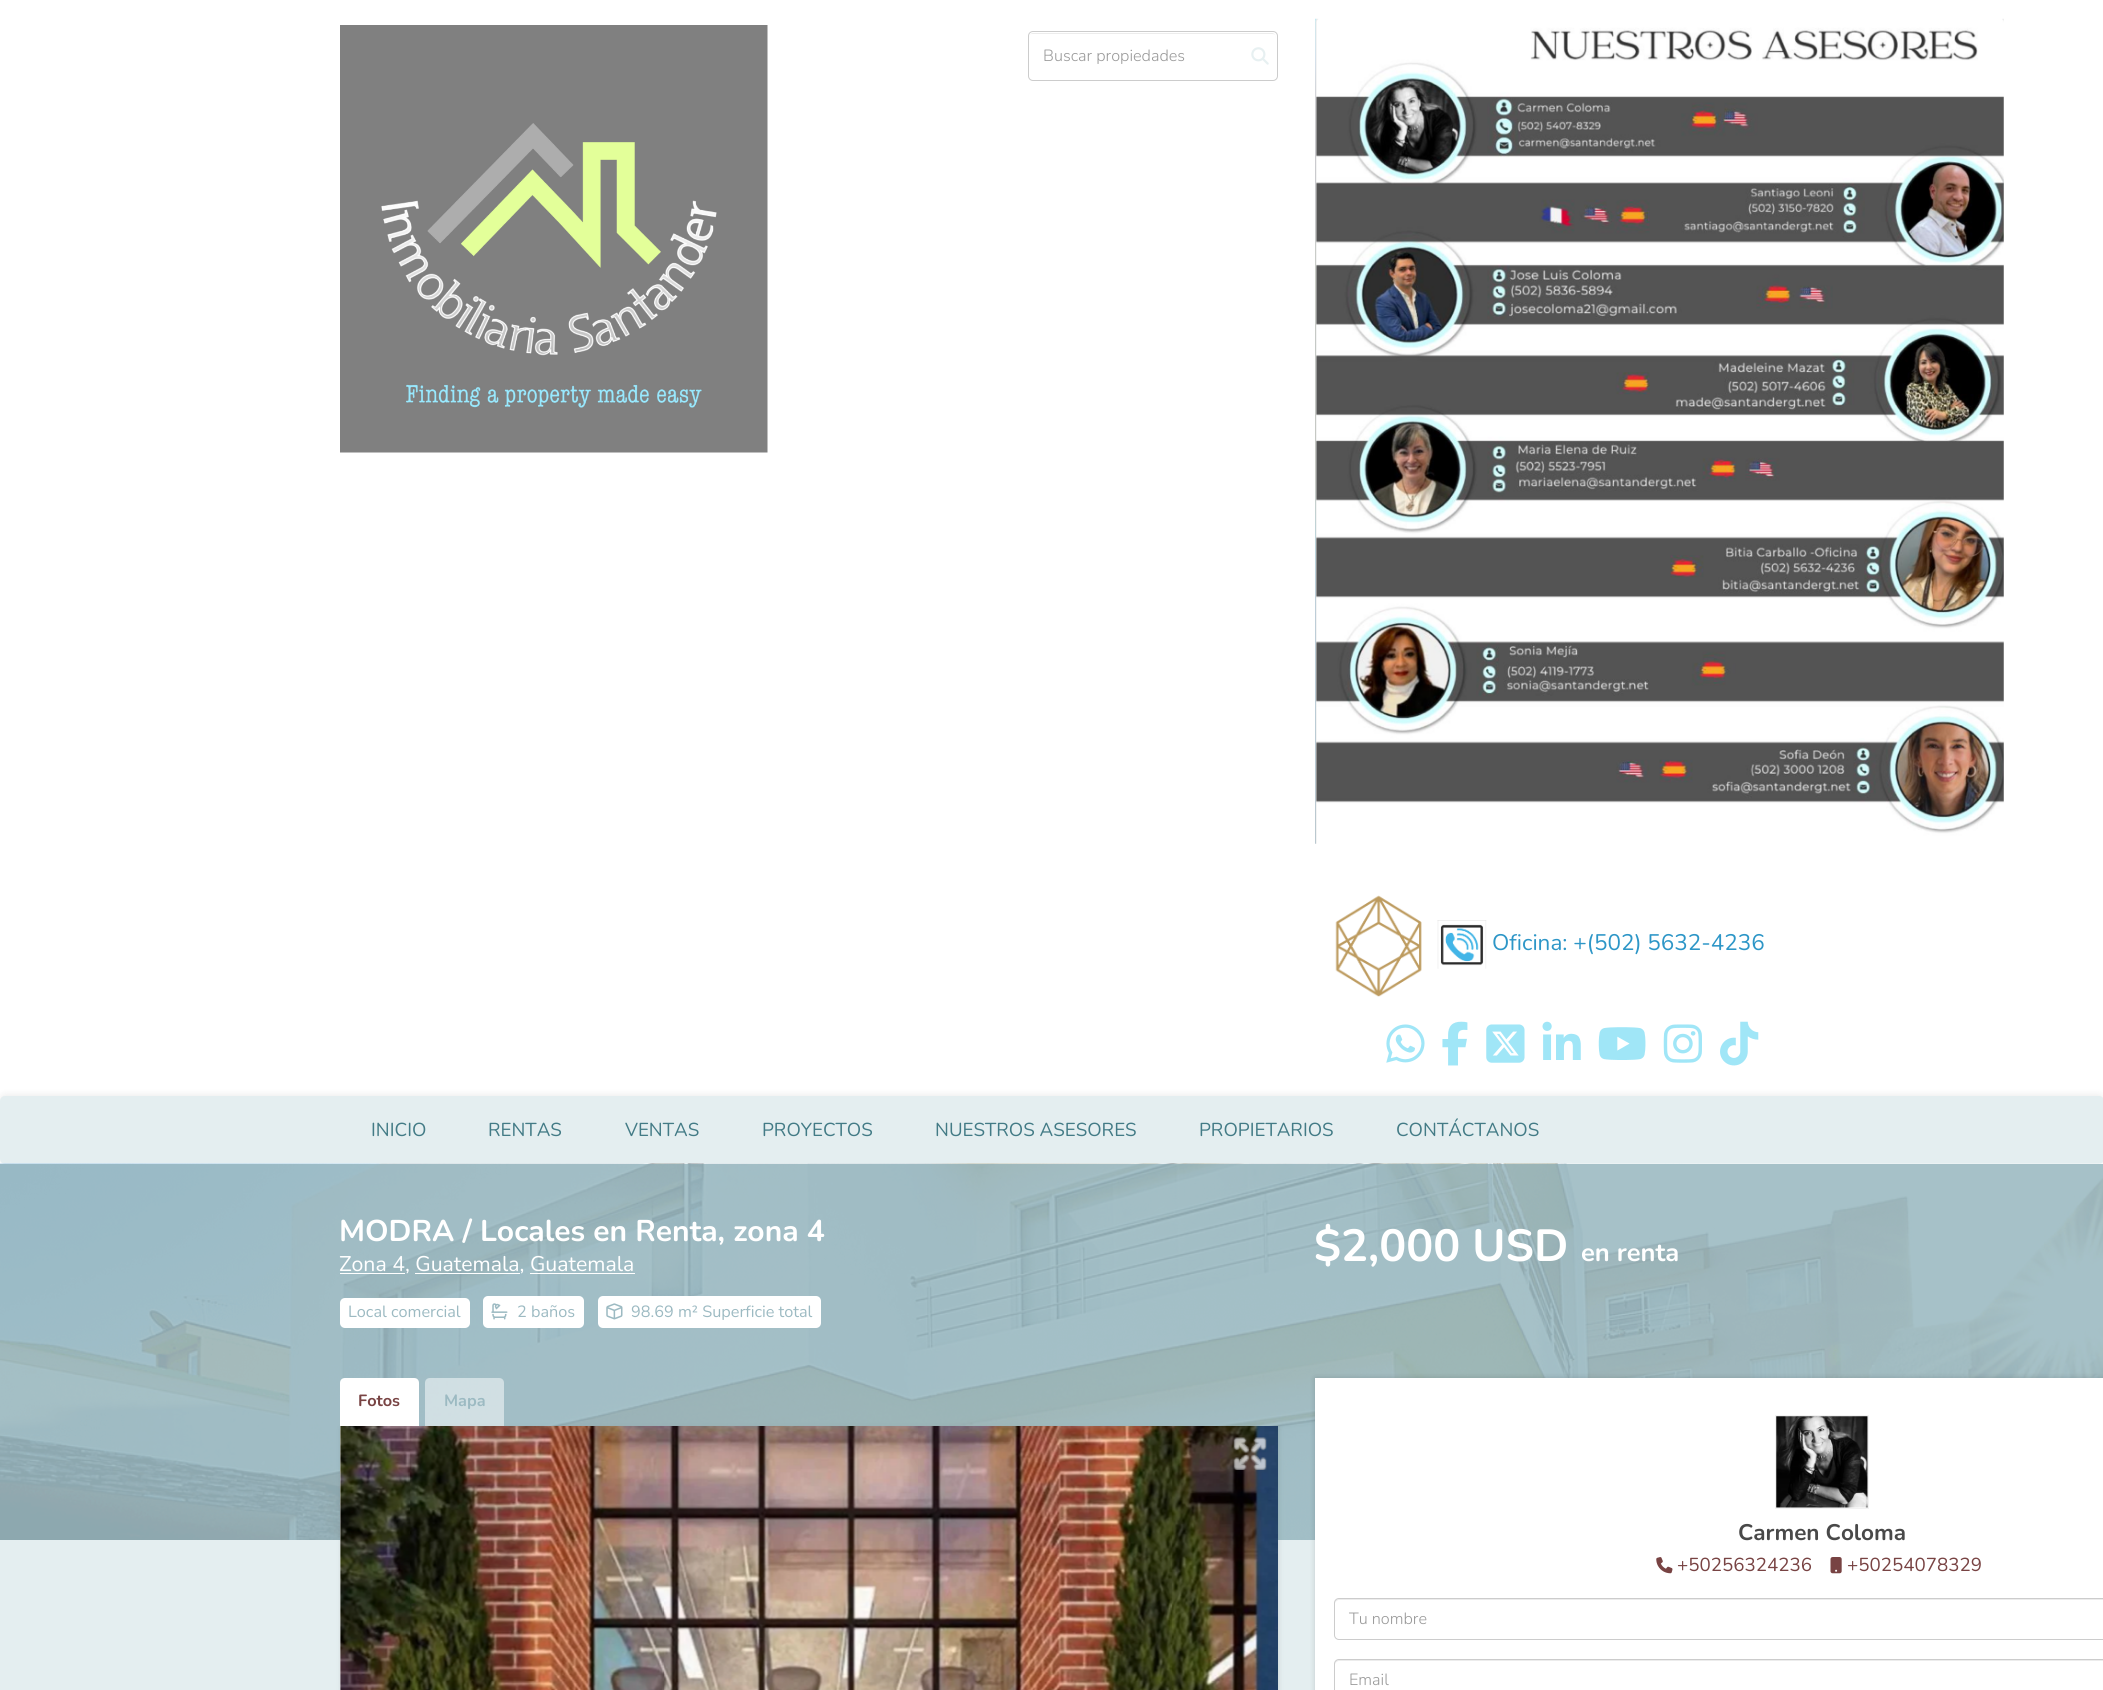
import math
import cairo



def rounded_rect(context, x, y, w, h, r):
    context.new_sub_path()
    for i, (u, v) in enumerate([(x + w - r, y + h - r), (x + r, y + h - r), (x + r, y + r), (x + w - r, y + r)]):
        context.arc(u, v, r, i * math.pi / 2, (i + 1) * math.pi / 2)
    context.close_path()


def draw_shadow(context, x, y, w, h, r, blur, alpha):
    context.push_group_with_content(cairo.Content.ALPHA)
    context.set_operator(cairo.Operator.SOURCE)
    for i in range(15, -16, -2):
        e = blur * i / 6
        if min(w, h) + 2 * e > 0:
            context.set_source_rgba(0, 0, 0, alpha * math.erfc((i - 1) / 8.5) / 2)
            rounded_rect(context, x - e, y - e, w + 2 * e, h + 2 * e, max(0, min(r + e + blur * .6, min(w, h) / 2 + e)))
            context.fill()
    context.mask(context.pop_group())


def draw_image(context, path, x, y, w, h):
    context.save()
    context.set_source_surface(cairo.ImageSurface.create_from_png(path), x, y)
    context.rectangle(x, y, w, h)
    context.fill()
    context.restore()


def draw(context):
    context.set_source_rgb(228 / 255, 238 / 255, 240 / 255)
    context.paint()
    context.set_source_rgb(1, 1, 1)
    context.rectangle(0, 0, 2103, 1164)
    context.fill()
    draw_image(context, "images/1.png", 340, 25, 428, 428)
    context.set_source_rgb(236 / 255, 236 / 255, 236 / 255)
    context.new_path()
    context.move_to(1032, 34)
    context.line_to(1272, 34)
    context.curve_to(1275, 34, 1276, 35, 1276, 38)
    context.line_to(1276, 37)
    context.curve_to(1276, 35, 1274, 33, 1272, 33)
    context.line_to(1033, 33)
    context.curve_to(1031, 33, 1029, 35, 1029, 37)
    context.line_to(1029, 38)
    context.curve_to(1029, 35, 1030, 34, 1032, 34)
    context.close_path()
    context.fill()
    rounded_rect(context, 1028.5, 31.5, 249, 49, 4.5)
    context.set_source_rgb(204 / 255, 204 / 255, 204 / 255)
    context.set_line_width(1)
    context.stroke()
    draw_image(context, "images/2.png", 1251, 47, 18, 18)
    draw_image(context, "images/3.png", 1315, 18, 689, 826)
    draw_image(context, "images/4.png", 1335, 895, 87, 102)
    draw_image(context, "images/5.png", 1437, 920, 50, 49)
    draw_image(context, "images/6.png", 1386, 1024, 39, 39)
    draw_image(context, "images/7.png", 1442, 1021, 26, 45)
    draw_image(context, "images/8.png", 1486, 1024, 39, 39)
    draw_image(context, "images/9.png", 1542, 1021, 39, 39)
    draw_image(context, "images/10.png", 1598, 1027, 48, 33)
    draw_image(context, "images/11.png", 1663, 1024, 39, 39)
    draw_image(context, "images/12.png", 1720, 1021, 39, 45)
    context.set_source_rgb(0, 0, 0)
    draw_shadow(context, 0, 1095, 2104, 68, 5, 4, 0.08)
    context.set_source_rgb(228 / 255, 238 / 255, 240 / 255)
    rounded_rect(context, 0, 1096, 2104, 68, 5)
    context.fill()
    draw_image(context, "images/13.png", 0, 1163, 2103, 377)
    context.set_source_rgb(1, 1, 1)
    context.rectangle(340, 1273, 65, 1)
    context.fill()
    context.rectangle(415, 1273, 105, 1)
    context.fill()
    context.rectangle(530, 1273, 105, 1)
    context.fill()
    rounded_rect(context, 340, 1298, 130, 30, 5)
    context.fill()
    rounded_rect(context, 483, 1296, 101, 32, 5)
    context.fill()
    draw_image(context, "images/14.png", 491, 1303, 17, 17)
    rounded_rect(context, 598, 1296, 223, 32, 5)
    context.fill()
    draw_image(context, "images/15.png", 606, 1303, 17, 17)
    context.set_source_rgb(0, 0, 0)
    draw_shadow(context, 341, 1428, 938, 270, 0, 2.5, 0.1)
    context.set_source_rgb(1, 1, 1)
    context.new_path()
    context.move_to(345, 1378)
    context.line_to(414, 1378)
    context.curve_to(417, 1378, 419, 1380, 419, 1383)
    context.line_to(419, 1426)
    context.line_to(340, 1426)
    context.line_to(340, 1383)
    context.curve_to(340, 1380, 342, 1378, 345, 1378)
    context.close_path()
    context.fill()
    context.set_source_rgba(1, 1, 1, 0.5)
    context.new_path()
    context.move_to(430, 1378)
    context.line_to(499, 1378)
    context.curve_to(502, 1378, 504, 1380, 504, 1383)
    context.line_to(504, 1426)
    context.line_to(425, 1426)
    context.line_to(425, 1383)
    context.curve_to(425, 1380, 427, 1378, 430, 1378)
    context.close_path()
    context.fill()
    context.set_source_rgb(1, 1, 1)
    context.rectangle(340, 1426, 1, 264)
    context.fill()
    draw_image(context, "images/16.png", 340, 1426, 938, 264)
    draw_image(context, "images/17.png", 1233, 1437, 34, 33)
    context.set_source_rgb(0, 0, 0)
    draw_shadow(context, 1315, 1378, 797, 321, 0, 3, 0.15)
    context.set_source_rgb(1, 1, 1)
    context.rectangle(1315, 1378, 788, 312)
    context.fill()
    context.rectangle(1775.5, 1415.5, 93, 93)
    context.set_source_rgb(242 / 255, 242 / 255, 242 / 255)
    context.stroke()
    draw_image(context, "images/18.png", 1776, 1416, 92, 92)
    draw_image(context, "images/19.png", 1656, 1557, 17, 17)
    draw_image(context, "images/20.png", 1830, 1557, 12, 17)
    context.set_source_rgb(236 / 255, 236 / 255, 236 / 255)
    context.new_path()
    context.move_to(1339, 1600)
    context.line_to(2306, 1600)
    context.curve_to(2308, 1600, 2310, 1602, 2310, 1604)
    context.curve_to(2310, 1601, 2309, 1599, 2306, 1599)
    context.line_to(1339, 1599)
    context.curve_to(1336, 1599, 1335, 1601, 1335, 1604)
    context.curve_to(1335, 1602, 1337, 1600, 1339, 1600)
    context.close_path()
    context.fill()
    rounded_rect(context, 1334.5, 1598.5, 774, 41, 4.5)
    context.set_source_rgb(204 / 255, 204 / 255, 204 / 255)
    context.stroke()
    context.set_source_rgb(236 / 255, 236 / 255, 236 / 255)
    context.new_path()
    context.move_to(1339, 1661)
    context.line_to(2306, 1661)
    context.curve_to(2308, 1661, 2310, 1663, 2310, 1665)
    context.curve_to(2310, 1662, 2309, 1660, 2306, 1660)
    context.line_to(1339, 1660)
    context.curve_to(1336, 1660, 1335, 1662, 1335, 1665)
    context.curve_to(1335, 1663, 1337, 1661, 1339, 1661)
    context.close_path()
    context.fill()
    rounded_rect(context, 1334.5, 1659.5, 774, 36, 4.5)
    context.set_source_rgb(204 / 255, 204 / 255, 204 / 255)
    context.stroke()
    context.select_font_face("Nunito Light")
    context.set_font_size(16.25)
    context.set_source_rgb(153 / 255, 153 / 255, 153 / 255)
    context.move_to(1043, 61)
    context.show_text("Buscar propiedades")
    context.select_font_face("Nunito")
    context.set_font_size(22.5)
    context.set_source_rgb(45 / 255, 150 / 255, 199 / 255)
    context.move_to(1492, 950)
    context.show_text("Oficina: +(502) 5632-4236")
    context.set_font_size(18.75)
    context.set_source_rgb(67 / 255, 123 / 255, 134 / 255)
    context.move_to(371, 1136)
    context.show_text("INICIO")
    context.move_to(488, 1136)
    context.show_text("RENTAS")
    context.move_to(625, 1136)
    context.show_text("VENTAS")
    context.move_to(762, 1136)
    context.show_text("PROYECTOS")
    context.move_to(935, 1136)
    context.show_text("NUESTROS ASESORES")
    context.move_to(1199, 1136)
    context.show_text("PROPIETARIOS")
    context.move_to(1396, 1136)
    context.show_text("CONTÁCTANOS")
    context.select_font_face("Nunito", cairo.FontSlant.NORMAL, cairo.FontWeight.BOLD)
    context.set_font_size(30)
    context.set_source_rgb(1, 1, 1)
    context.move_to(339, 1241)
    context.show_text("MODRA / Locales en Renta, zona 4")
    context.select_font_face("Nunito")
    context.set_font_size(21.25)
    context.move_to(339, 1271)
    context.show_text("Zona 4, Guatemala, Guatemala")
    context.set_font_size(16.25)
    context.set_source_rgb(156 / 255, 186 / 255, 194 / 255)
    context.move_to(348, 1317)
    context.show_text("Local comercial")
    context.move_to(517, 1317)
    context.show_text("2 baños")
    context.move_to(631, 1317)
    context.show_text("98.69 m² Superficie total")
    context.select_font_face("Nunito", cairo.FontSlant.NORMAL, cairo.FontWeight.BOLD)
    context.set_font_size(45)
    context.set_source_rgb(1, 1, 1)
    context.move_to(1314, 1261)
    context.show_text("$2,000 USD")
    context.set_font_size(25.5)
    context.move_to(1581, 1261)
    context.show_text("en renta")
    context.set_font_size(16.25)
    context.set_source_rgb(120 / 255, 67 / 255, 67 / 255)
    context.move_to(358, 1406)
    context.show_text("Fotos")
    context.set_source_rgb(156 / 255, 186 / 255, 194 / 255)
    context.move_to(444, 1406)
    context.show_text("Mapa")
    context.set_font_size(22.5)
    context.set_source_rgb(73 / 255, 73 / 255, 73 / 255)
    context.move_to(1738, 1540)
    context.show_text("Carmen Coloma")
    context.select_font_face("Nunito")
    context.set_font_size(18.75)
    context.set_source_rgb(120 / 255, 67 / 255, 67 / 255)
    context.move_to(1677, 1571)
    context.show_text("+50256324236")
    context.move_to(1847, 1571)
    context.show_text("+50254078329")
    context.select_font_face("Nunito Light")
    context.set_font_size(16.25)
    context.set_source_rgb(153 / 255, 153 / 255, 153 / 255)
    context.move_to(1349, 1624)
    context.show_text("Tu nombre")
    context.move_to(1349, 1685)
    context.show_text("Email")


surface = cairo.ImageSurface(cairo.Format.RGB24, 2103, 1690)
context = cairo.Context(surface)
options = cairo.FontOptions()
options.set_hint_metrics(cairo.HintMetrics.OFF)
options.set_hint_style(cairo.HintStyle.NONE)
context.set_font_options(options)
context.set_miter_limit(4)
draw(context)
surface.write_to_png("out.png")
